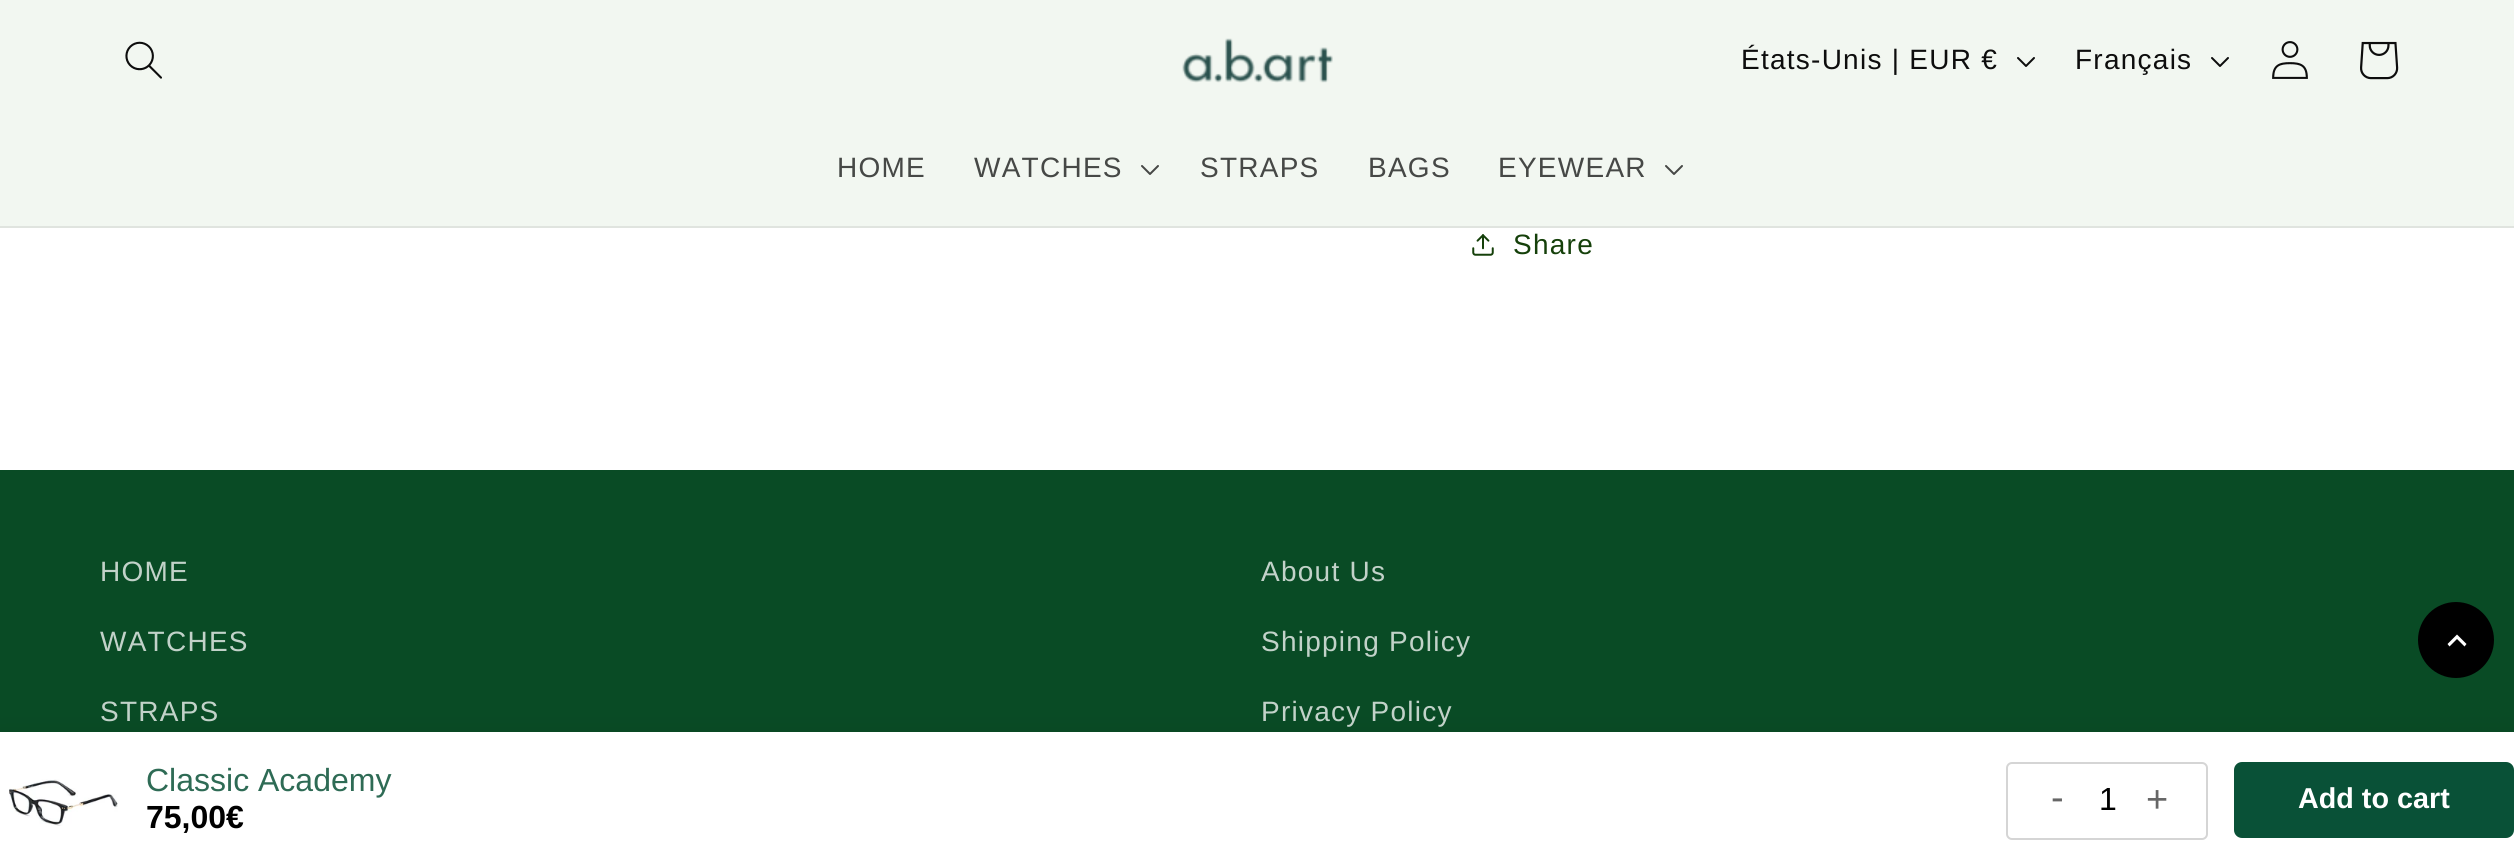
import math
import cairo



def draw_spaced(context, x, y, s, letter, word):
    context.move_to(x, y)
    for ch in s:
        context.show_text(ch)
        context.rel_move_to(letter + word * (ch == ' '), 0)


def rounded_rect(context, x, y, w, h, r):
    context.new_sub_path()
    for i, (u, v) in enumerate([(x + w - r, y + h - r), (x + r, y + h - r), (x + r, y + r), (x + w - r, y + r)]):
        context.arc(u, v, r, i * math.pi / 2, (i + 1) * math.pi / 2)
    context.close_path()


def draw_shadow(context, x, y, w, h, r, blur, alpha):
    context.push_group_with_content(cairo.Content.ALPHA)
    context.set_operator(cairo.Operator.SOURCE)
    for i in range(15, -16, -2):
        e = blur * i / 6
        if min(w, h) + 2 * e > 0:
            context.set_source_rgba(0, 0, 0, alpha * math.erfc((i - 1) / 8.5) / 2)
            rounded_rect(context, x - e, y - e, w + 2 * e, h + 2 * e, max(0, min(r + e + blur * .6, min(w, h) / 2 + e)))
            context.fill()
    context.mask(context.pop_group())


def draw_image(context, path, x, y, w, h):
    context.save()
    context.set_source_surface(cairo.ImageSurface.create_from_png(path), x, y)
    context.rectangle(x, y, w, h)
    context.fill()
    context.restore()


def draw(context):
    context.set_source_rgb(1, 1, 1)
    context.paint()
    context.set_source_rgb(242 / 255, 247 / 255, 241 / 255)
    context.rectangle(0, 0, 2514, 226)
    context.fill()
    context.set_source_rgb(224 / 255, 228 / 255, 223 / 255)
    context.rectangle(0, 226, 2514, 2)
    context.fill()
    draw_image(context, "images/1.png", 125, 41, 37, 38)
    draw_image(context, "images/2.png", 1182, 38, 151, 45)
    draw_image(context, "images/3.png", 2017, 57, 18, 10)
    draw_image(context, "images/3.png", 2211, 57, 18, 10)
    draw_image(context, "images/4.png", 2272, 41, 36, 38)
    draw_image(context, "images/5.png", 2360, 41, 39, 39)
    draw_image(context, "images/6.png", 1141, 165, 18, 10)
    draw_image(context, "images/6.png", 1665, 165, 18, 10)
    draw_image(context, "images/7.png", 1472, 234, 22, 22)
    context.set_source_rgb(9 / 255, 75 / 255, 37 / 255)
    context.rectangle(0, 470, 2514, 262)
    context.fill()
    context.set_source_rgb(0, 0, 0)
    context.arc(2456, 640, 38, 0, 2 * math.pi)
    context.fill()
    context.set_source_rgb(1, 1, 1)
    context.new_path()
    context.move_to(2449.5, 646.5)
    context.line_to(2457, 639)
    context.line_to(2464.5, 646.5)
    context.line_to(2466.5, 644)
    context.line_to(2457, 634.5)
    context.line_to(2447.5, 644)
    context.close_path()
    context.fill()
    context.set_source_rgb(0, 0, 0)
    draw_shadow(context, 0, 732, 2514, 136, 0, 10, 0.09)
    context.set_source_rgb(1, 1, 1)
    context.rectangle(0, 732, 2514, 135)
    context.fill()
    draw_image(context, "images/8.png", 9, 779, 109, 47)
    rounded_rect(context, 2007, 763, 200, 76, 5)
    context.set_source_rgb(213 / 255, 213 / 255, 213 / 255)
    context.stroke()
    context.set_source_rgb(9 / 255, 81 / 255, 55 / 255)
    rounded_rect(context, 2234, 762, 280, 76, 8)
    context.fill()
    context.select_font_face("Liberation Sans")
    context.set_font_size(28)
    context.set_source_rgb(13 / 255, 13 / 255, 13 / 255)
    draw_spaced(context, 1741, 69, "États-Unis | EUR €", 1.25, 0)
    draw_spaced(context, 2075, 69, "Français", 1.25, 0)
    context.set_source_rgb(70 / 255, 72 / 255, 70 / 255)
    draw_spaced(context, 837, 177, "HOME", 1.25, 0)
    draw_spaced(context, 974, 177, "WATCHES", 1.25, 0)
    draw_spaced(context, 1200, 177, "STRAPS", 1.25, 0)
    draw_spaced(context, 1368, 177, "BAGS", 1.25, 0)
    draw_spaced(context, 1498, 177, "EYEWEAR", 1.25, 0)
    context.set_source_rgb(21 / 255, 64 / 255, 10 / 255)
    draw_spaced(context, 1513, 254, "Share", 1.25, 0)
    context.set_source_rgb(194 / 255, 210 / 255, 201 / 255)
    draw_spaced(context, 100, 581, "HOME", 1.25, 0)
    draw_spaced(context, 100, 651, "WATCHES", 1.25, 0)
    draw_spaced(context, 100, 721, "STRAPS", 1.25, 0)
    draw_spaced(context, 1261, 581, "About Us", 1.25, 0)
    draw_spaced(context, 1261, 651, "Shipping Policy", 1.25, 0)
    draw_spaced(context, 1261, 721, "Privacy Policy", 1.25, 0)
    context.set_font_size(32)
    context.set_source_rgb(46 / 255, 107 / 255, 85 / 255)
    context.move_to(146, 791)
    context.show_text("Classic Academy")
    context.select_font_face("Liberation Sans", cairo.FontSlant.NORMAL, cairo.FontWeight.BOLD)
    context.set_source_rgb(0, 0, 0)
    context.move_to(146, 828)
    context.show_text("75,00€")
    context.select_font_face("Liberation Sans")
    context.set_font_size(38)
    context.set_source_rgb(102 / 255, 102 / 255, 102 / 255)
    context.move_to(2051, 810)
    context.show_text("-")
    context.set_font_size(32)
    context.set_source_rgb(0, 0, 0)
    context.move_to(2099, 810)
    context.show_text("1")
    context.set_font_size(38)
    context.set_source_rgb(102 / 255, 102 / 255, 102 / 255)
    context.move_to(2146, 812)
    context.show_text("+")
    context.select_font_face("Liberation Sans", cairo.FontSlant.NORMAL, cairo.FontWeight.BOLD)
    context.set_font_size(28.75)
    context.set_source_rgb(1, 1, 1)
    context.move_to(2298, 808)
    context.show_text("Add to cart")


surface = cairo.ImageSurface(cairo.Format.RGB24, 2514, 867)
context = cairo.Context(surface)
options = cairo.FontOptions()
options.set_hint_metrics(cairo.HintMetrics.OFF)
options.set_hint_style(cairo.HintStyle.NONE)
context.set_font_options(options)
context.set_miter_limit(4)
draw(context)
surface.write_to_png("out.png")
